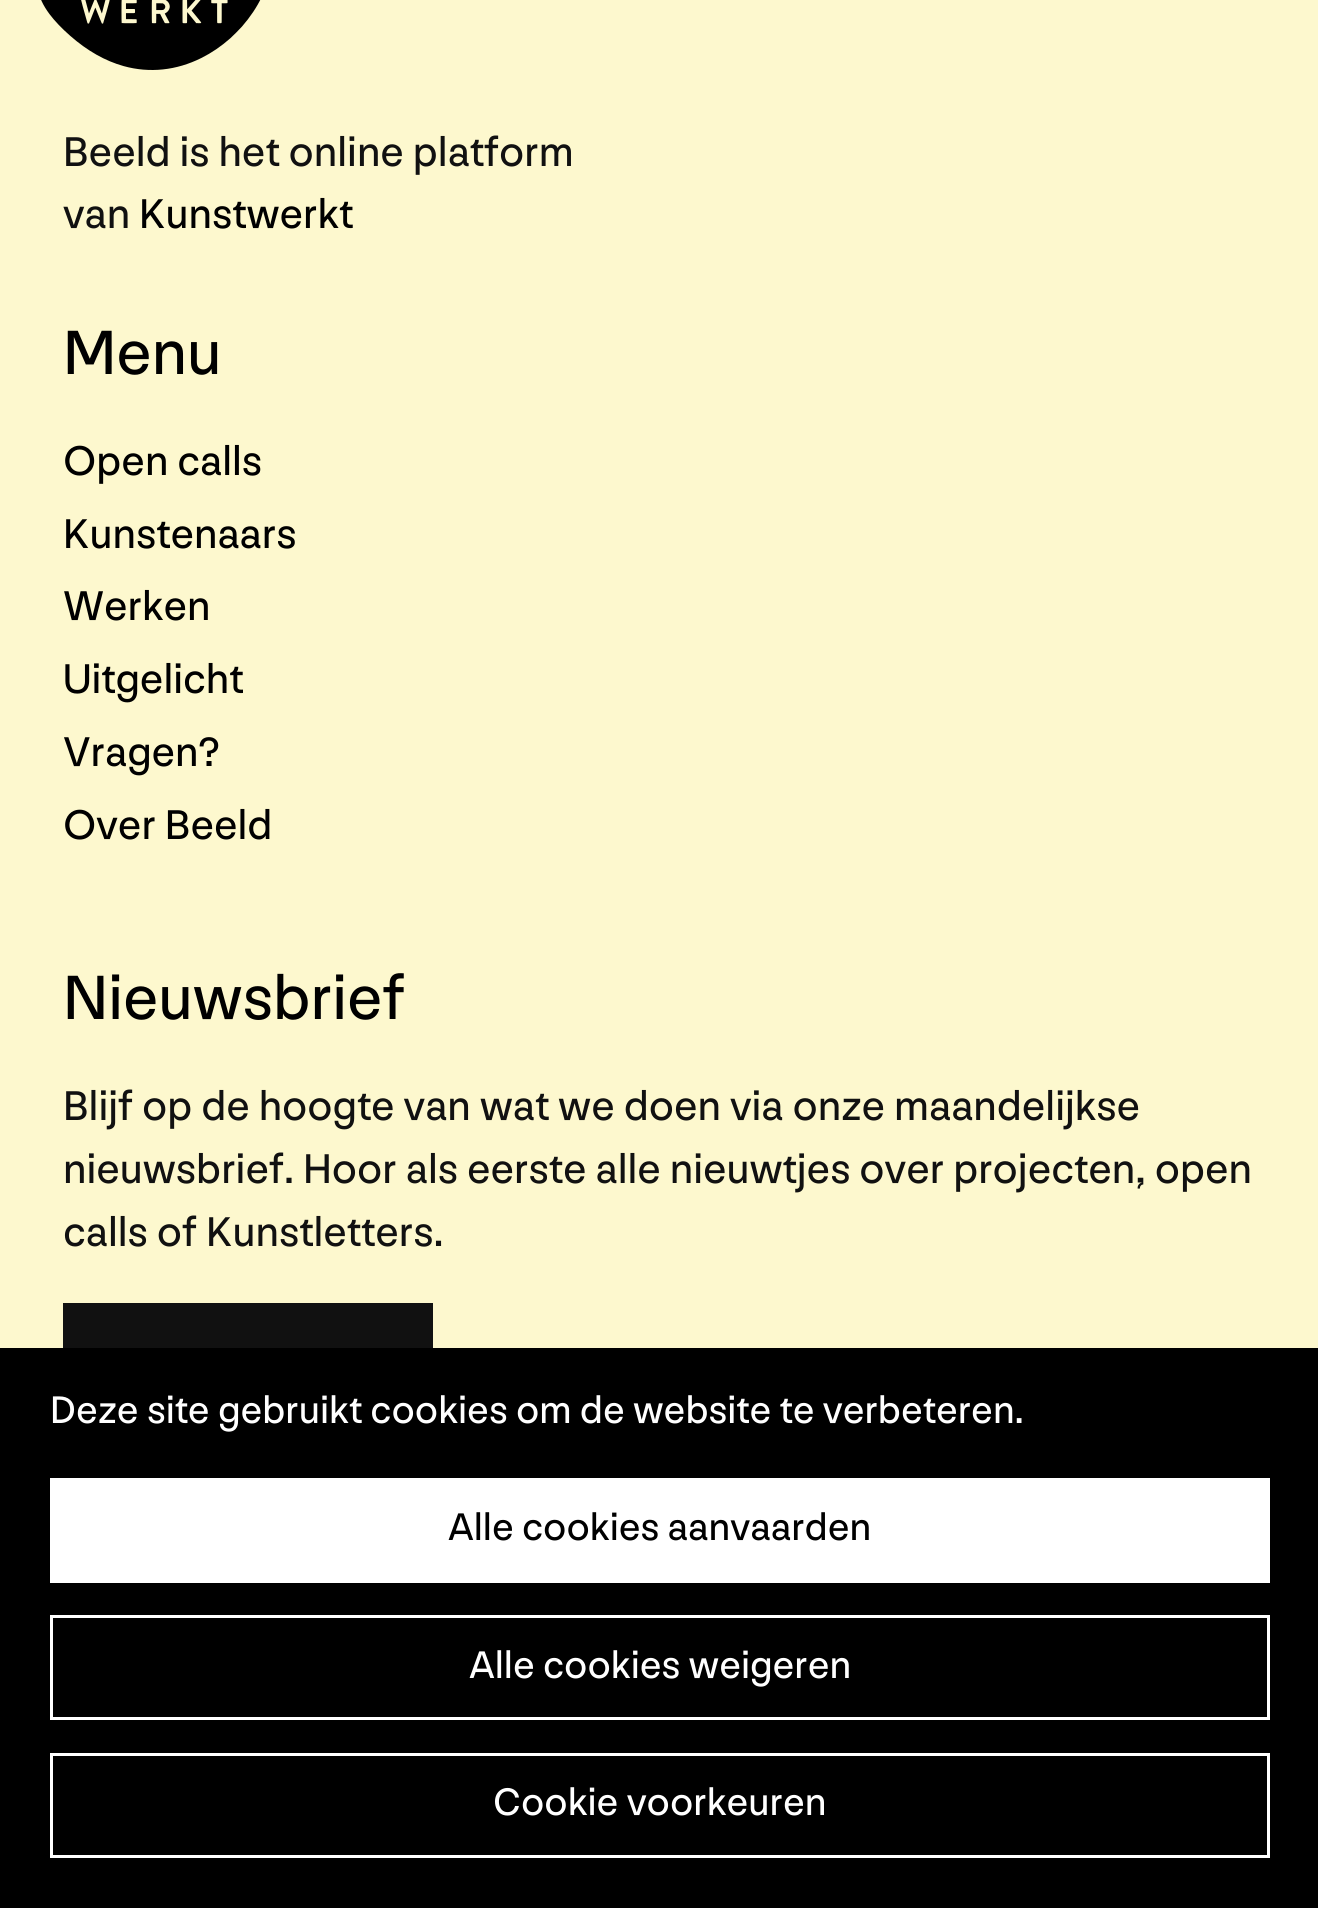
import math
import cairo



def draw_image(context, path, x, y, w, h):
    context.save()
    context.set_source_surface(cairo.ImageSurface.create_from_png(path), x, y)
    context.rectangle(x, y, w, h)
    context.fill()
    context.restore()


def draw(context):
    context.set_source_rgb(253 / 255, 248 / 255, 206 / 255)
    context.paint()
    draw_image(context, "images/1.png", 41, 0, 220, 70)
    context.set_source_rgb(17 / 255, 17 / 255, 17 / 255)
    context.rectangle(63, 1303, 370, 45)
    context.fill()
    context.set_source_rgb(0, 0, 0)
    context.rectangle(0, 1348, 1318, 560)
    context.fill()
    context.set_source_rgb(1, 1, 1)
    context.rectangle(50, 1478, 1220, 105)
    context.fill()
    context.rectangle(51.5, 1616.5, 1217, 102)
    context.set_line_width(3)
    context.stroke()
    context.rectangle(51.5, 1754.5, 1217, 102)
    context.stroke()
    context.select_font_face("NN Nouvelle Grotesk")
    context.set_font_size(43.25)
    context.set_source_rgb(17 / 255, 17 / 255, 17 / 255)
    context.move_to(63, 166)
    context.show_text("Beeld is het online platform")
    context.move_to(63, 228)
    context.show_text("van")
    context.set_source_rgb(0, 0, 0)
    context.move_to(139, 228)
    context.show_text("Kunstwerkt")
    context.set_font_size(65)
    context.move_to(63, 374)
    context.show_text("Menu")
    context.set_font_size(43.25)
    context.move_to(63, 475)
    context.show_text("Open calls")
    context.move_to(63, 548)
    context.show_text("Kunstenaars")
    context.move_to(63, 620)
    context.show_text("Werken")
    context.move_to(63, 693)
    context.show_text("Uitgelicht")
    context.move_to(63, 766)
    context.show_text("Vragen?")
    context.move_to(63, 839)
    context.show_text("Over Beeld")
    context.set_font_size(65)
    context.move_to(63, 1019)
    context.show_text("Nieuwsbrief")
    context.set_font_size(43.25)
    context.set_source_rgb(17 / 255, 17 / 255, 17 / 255)
    context.move_to(63, 1120)
    context.show_text("Blijf op de hoogte van wat we doen via onze maandelijkse")
    context.move_to(63, 1183)
    context.show_text("nieuwsbrief. Hoor als eerste alle nieuwtjes over projecten, open")
    context.move_to(63, 1246)
    context.show_text("calls of Kunstletters.")
    context.set_font_size(40)
    context.set_source_rgb(1, 1, 1)
    context.move_to(50, 1423)
    context.show_text("Deze site gebruikt cookies om de website te verbeteren.")
    context.set_source_rgb(0, 0, 0)
    context.move_to(448, 1540)
    context.show_text("Alle cookies aanvaarden")
    context.set_source_rgb(1, 1, 1)
    context.move_to(469, 1678)
    context.show_text("Alle cookies weigeren")
    context.move_to(493, 1815)
    context.show_text("Cookie voorkeuren")


surface = cairo.ImageSurface(cairo.Format.RGB24, 1318, 1908)
context = cairo.Context(surface)
options = cairo.FontOptions()
options.set_hint_metrics(cairo.HintMetrics.OFF)
options.set_hint_style(cairo.HintStyle.NONE)
context.set_font_options(options)
context.set_miter_limit(4)
draw(context)
surface.write_to_png("out.png")
